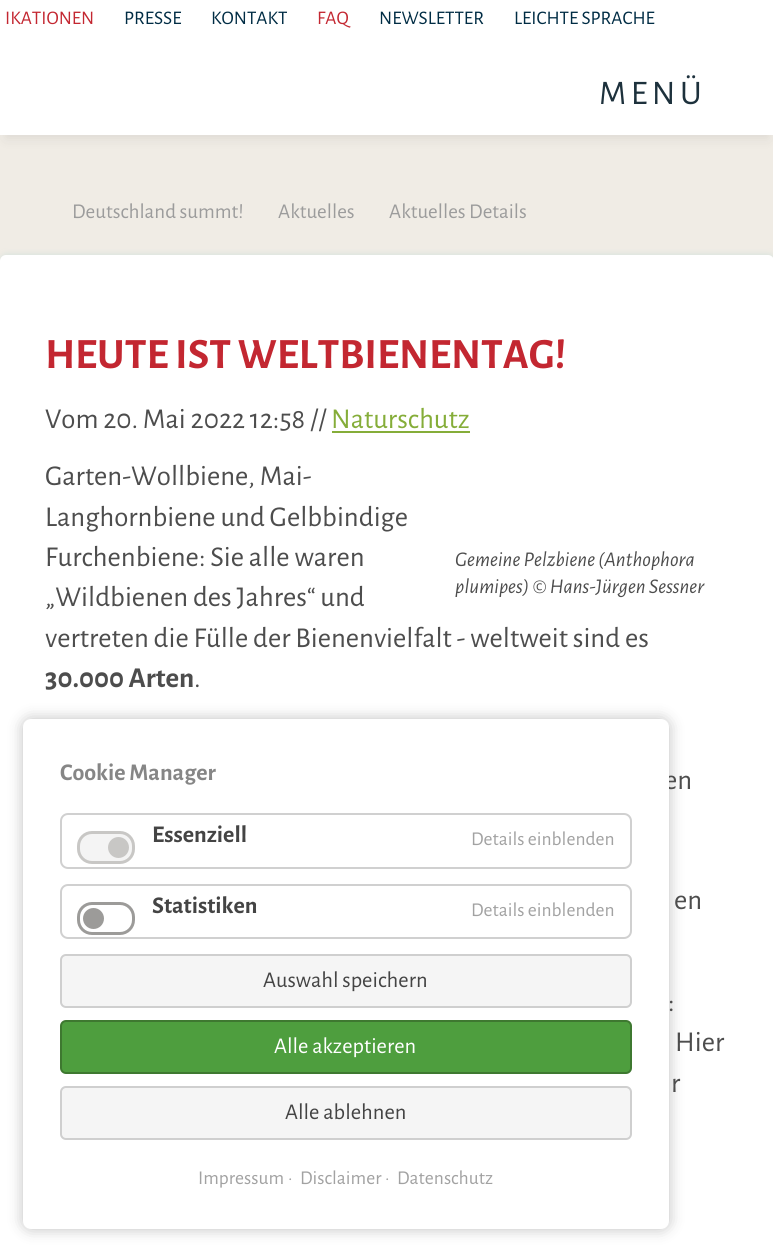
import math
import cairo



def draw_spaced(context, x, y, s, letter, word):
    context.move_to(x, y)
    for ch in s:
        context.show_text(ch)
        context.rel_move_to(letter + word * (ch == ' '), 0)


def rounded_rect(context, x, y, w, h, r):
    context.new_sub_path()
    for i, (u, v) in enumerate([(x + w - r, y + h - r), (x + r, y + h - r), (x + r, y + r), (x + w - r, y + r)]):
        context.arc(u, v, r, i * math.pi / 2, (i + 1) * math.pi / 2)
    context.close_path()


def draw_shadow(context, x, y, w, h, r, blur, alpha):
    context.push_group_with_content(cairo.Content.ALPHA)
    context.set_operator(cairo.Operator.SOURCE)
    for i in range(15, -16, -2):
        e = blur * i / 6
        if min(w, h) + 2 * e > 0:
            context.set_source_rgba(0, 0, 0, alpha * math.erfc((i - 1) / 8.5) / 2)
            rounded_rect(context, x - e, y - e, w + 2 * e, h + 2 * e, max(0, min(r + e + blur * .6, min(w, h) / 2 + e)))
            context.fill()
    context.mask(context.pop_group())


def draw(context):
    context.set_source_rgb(240 / 255, 236 / 255, 229 / 255)
    context.paint()
    context.set_source_rgb(26 / 255, 26 / 255, 26 / 255)
    draw_shadow(context, 6, 15, 762, 123, 0, 6, 0.1)
    context.set_source_rgb(1, 1, 1)
    context.rectangle(0, 0, 773, 135)
    context.fill()
    context.set_source_rgb(216 / 255, 227 / 255, 221 / 255)
    draw_shadow(context, -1, 254, 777, 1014, 8, 3, 1)
    context.set_source_rgb(1, 1, 1)
    rounded_rect(context, 0, 255, 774, 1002, 6)
    context.fill()
    context.set_source_rgb(133 / 255, 173 / 255, 57 / 255)
    context.rectangle(332, 431, 138, 2)
    context.fill()
    context.set_source_rgb(0, 0, 0)
    draw_shadow(context, 23, 719, 646, 510, 8, 7.5, 0.25)
    context.select_font_face("Alegreya Sans")
    context.set_font_size(19.25)
    context.set_source_rgb(195 / 255, 39 / 255, 49 / 255)
    context.move_to(5, 24)
    context.show_text("IKATIONEN")
    context.set_source_rgb(0, 44 / 255, 68 / 255)
    context.move_to(124, 24)
    context.show_text("PRESSE")
    context.move_to(211, 24)
    context.show_text("KONTAKT")
    context.set_source_rgb(195 / 255, 39 / 255, 49 / 255)
    context.move_to(317, 24)
    context.show_text("FAQ")
    context.set_source_rgb(0, 44 / 255, 68 / 255)
    context.move_to(379, 24)
    context.show_text("NEWSLETTER")
    context.move_to(514, 24)
    context.show_text("LEICHTE SPRACHE")
    context.set_font_size(34.5)
    context.set_source_rgb(29 / 255, 49 / 255, 60 / 255)
    draw_spaced(context, 599, 104, "MENÜ", 4.5, 0)
    context.set_font_size(21)
    context.set_source_rgb(156 / 255, 156 / 255, 156 / 255)
    context.move_to(72, 218)
    context.show_text("Deutschland summt!")
    context.move_to(278, 218)
    context.show_text("Aktuelles")
    context.move_to(389, 218)
    context.show_text("Aktuelles Details")
    context.select_font_face("Alegreya Sans", cairo.FontSlant.NORMAL, cairo.FontWeight.BOLD)
    context.set_font_size(43.25)
    context.set_source_rgb(195 / 255, 39 / 255, 49 / 255)
    context.move_to(45, 368)
    context.show_text("HEUTE IST WELTBIENENTAG!")
    context.select_font_face("Alegreya Sans")
    context.set_font_size(28.8)
    context.set_source_rgb(77 / 255, 77 / 255, 77 / 255)
    context.move_to(45, 428)
    context.show_text("Vom 20. Mai 2022 12:58 //")
    context.set_source_rgb(133 / 255, 173 / 255, 57 / 255)
    context.move_to(331, 428)
    context.show_text("Naturschutz")
    context.set_source_rgb(77 / 255, 77 / 255, 77 / 255)
    context.move_to(45, 485)
    context.show_text("Garten-Wollbiene, Mai-")
    context.move_to(45, 526)
    context.show_text("Langhornbiene und Gelbbindige")
    context.move_to(45, 566)
    context.show_text("Furchenbiene: Sie alle waren")
    context.move_to(45, 606)
    context.show_text("„Wildbienen des Jahres“ und")
    context.move_to(45, 647)
    context.show_text("vertreten die Fülle der Bienenvielfalt - weltweit sind es")
    context.select_font_face("Alegreya Sans", cairo.FontSlant.NORMAL, cairo.FontWeight.BOLD)
    context.move_to(45, 687)
    context.show_text("30.000 Arten")
    context.select_font_face("Alegreya Sans")
    context.move_to(194, 687)
    context.show_text(".")
    context.select_font_face("Alegreya Sans", cairo.FontSlant.ITALIC)
    context.set_font_size(21)
    context.move_to(455, 566)
    context.show_text("Gemeine Pelzbiene (Anthophora")
    context.move_to(455, 593)
    context.show_text("plumipes) © Hans-Jürgen Sessner")
    context.select_font_face("Alegreya Sans")
    context.set_font_size(28.8)
    context.move_to(664, 789)
    context.show_text("en")
    context.move_to(674, 909)
    context.show_text("en")
    context.move_to(668, 1011)
    context.show_text(":")
    context.move_to(675, 1051)
    context.show_text("Hier")
    context.move_to(671, 1092)
    context.show_text("r")
    context.set_source_rgb(1, 1, 1)
    rounded_rect(context, 23, 719, 646, 510, 8)
    context.fill()
    context.select_font_face("Alegreya Sans", cairo.FontSlant.NORMAL, cairo.FontWeight.BOLD)
    context.set_font_size(24)
    context.set_source_rgb(134 / 255, 134 / 255, 134 / 255)
    context.move_to(60, 780)
    context.show_text("Cookie Manager")
    rounded_rect(context, 61, 814, 570, 54, 7)
    context.set_source_rgb(208 / 255, 208 / 255, 208 / 255)
    context.stroke()
    context.set_source_rgb(244 / 255, 244 / 255, 244 / 255)
    rounded_rect(context, 78.5, 832.5, 55, 30, 13.5)
    context.fill_preserve()
    context.set_source_rgb(200 / 255, 199 / 255, 197 / 255)
    context.set_line_width(3)
    context.stroke()
    context.set_source_rgb(68 / 255, 68 / 255, 68 / 255)
    context.move_to(152, 842)
    context.show_text("Essenziell")
    context.set_source_rgb(200 / 255, 199 / 255, 197 / 255)
    context.new_path()
    context.arc(118.5, 847.5, 10.5, 0, 2 * math.pi)
    context.fill()
    context.select_font_face("Alegreya Sans")
    context.set_font_size(19.5)
    context.set_source_rgb(162 / 255, 162 / 255, 162 / 255)
    context.move_to(471, 845)
    context.show_text("Details einblenden")
    rounded_rect(context, 61, 885, 570, 53, 7)
    context.set_source_rgb(208 / 255, 208 / 255, 208 / 255)
    context.set_line_width(2)
    context.stroke()
    rounded_rect(context, 78.5, 903.5, 55, 30, 13.5)
    context.set_source_rgb(156 / 255, 155 / 255, 153 / 255)
    context.set_line_width(3)
    context.stroke()
    context.select_font_face("Alegreya Sans", cairo.FontSlant.NORMAL, cairo.FontWeight.BOLD)
    context.set_font_size(24)
    context.set_source_rgb(68 / 255, 68 / 255, 68 / 255)
    context.move_to(152, 913)
    context.show_text("Statistiken")
    context.set_source_rgb(156 / 255, 155 / 255, 153 / 255)
    context.new_path()
    context.arc(93.5, 918.5, 10.5, 0, 2 * math.pi)
    context.fill()
    context.select_font_face("Alegreya Sans")
    context.set_font_size(19.5)
    context.set_source_rgb(162 / 255, 162 / 255, 162 / 255)
    context.move_to(471, 916)
    context.show_text("Details einblenden")
    context.set_source_rgb(245 / 255, 245 / 255, 245 / 255)
    rounded_rect(context, 61, 955, 570, 52, 5)
    context.fill_preserve()
    context.set_source_rgb(207 / 255, 207 / 255, 207 / 255)
    context.set_line_width(2)
    context.stroke()
    context.set_font_size(22.5)
    context.set_source_rgb(68 / 255, 68 / 255, 68 / 255)
    context.move_to(263, 987)
    context.show_text("Auswahl speichern")
    context.set_source_rgb(78 / 255, 158 / 255, 62 / 255)
    rounded_rect(context, 61, 1021, 570, 52, 5)
    context.fill_preserve()
    context.set_source_rgb(62 / 255, 120 / 255, 48 / 255)
    context.stroke()
    context.set_source_rgb(1, 1, 1)
    context.move_to(274, 1053)
    context.show_text("Alle akzeptieren")
    context.set_source_rgb(245 / 255, 245 / 255, 245 / 255)
    rounded_rect(context, 61, 1087, 570, 52, 5)
    context.fill_preserve()
    context.set_source_rgb(207 / 255, 207 / 255, 207 / 255)
    context.stroke()
    context.set_source_rgb(68 / 255, 68 / 255, 68 / 255)
    context.move_to(285, 1119)
    context.show_text("Alle ablehnen")
    context.set_font_size(19.5)
    context.set_source_rgb(162 / 255, 162 / 255, 162 / 255)
    context.move_to(198, 1184)
    context.show_text("Impressum")
    context.move_to(288, 1184)
    context.show_text("·")
    context.move_to(300, 1184)
    context.show_text("Disclaimer")
    context.move_to(385, 1184)
    context.show_text("·")
    context.move_to(397, 1184)
    context.show_text("Datenschutz")


surface = cairo.ImageSurface(cairo.Format.RGB24, 773, 1251)
context = cairo.Context(surface)
options = cairo.FontOptions()
options.set_hint_metrics(cairo.HintMetrics.OFF)
options.set_hint_style(cairo.HintStyle.NONE)
context.set_font_options(options)
context.set_miter_limit(4)
draw(context)
surface.write_to_png("out.png")
